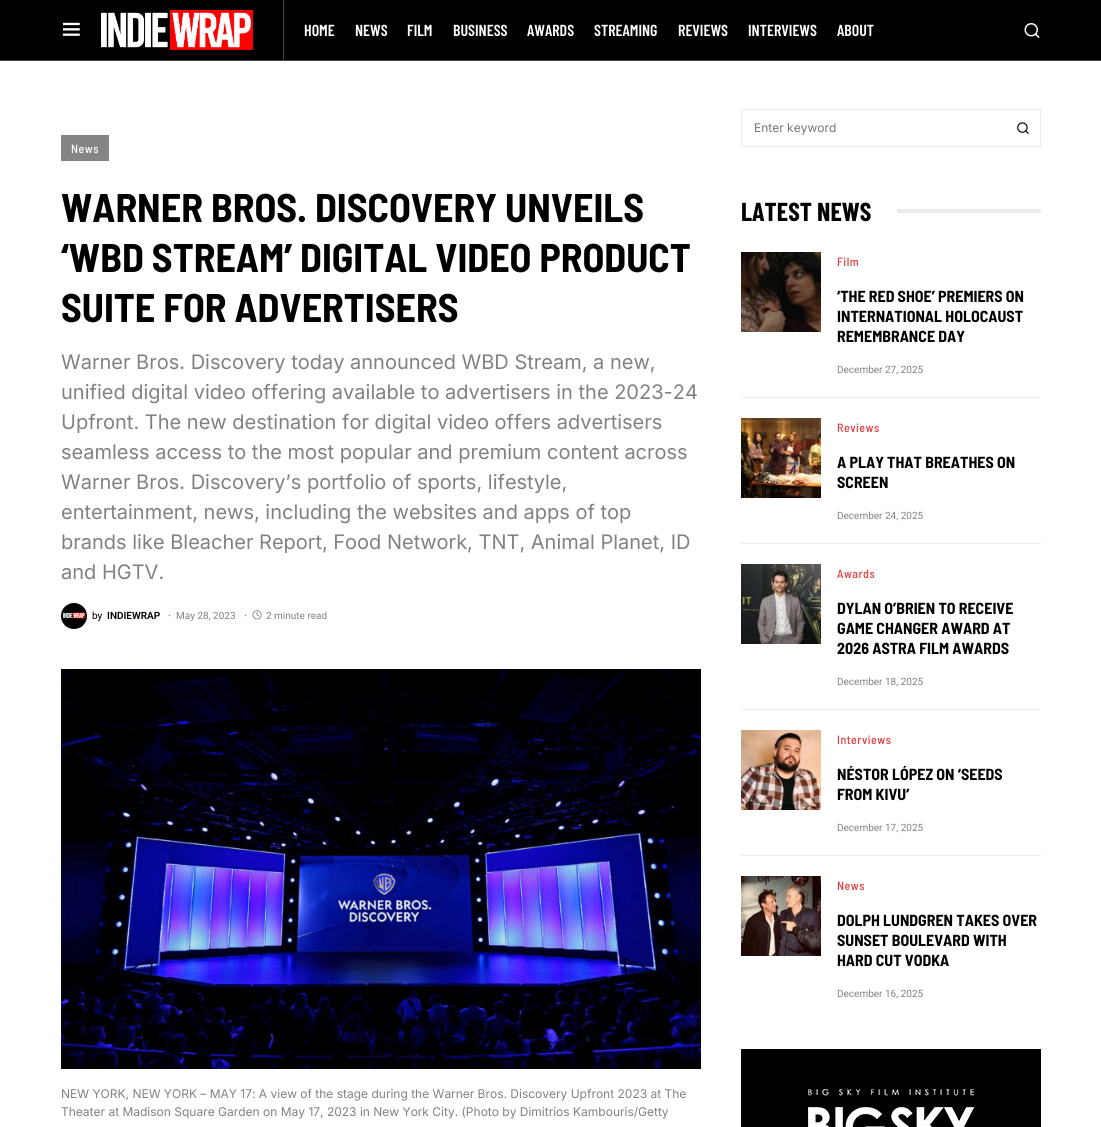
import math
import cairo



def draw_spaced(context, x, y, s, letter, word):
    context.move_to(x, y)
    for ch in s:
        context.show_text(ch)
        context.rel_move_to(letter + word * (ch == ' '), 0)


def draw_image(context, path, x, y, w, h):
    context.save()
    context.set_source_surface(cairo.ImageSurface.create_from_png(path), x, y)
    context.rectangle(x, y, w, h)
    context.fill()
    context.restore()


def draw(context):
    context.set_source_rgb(1, 1, 1)
    context.paint()
    context.set_source_rgb(0, 0, 0)
    context.rectangle(0, 0, 1101, 60)
    context.fill()
    context.set_source_rgb(73 / 255, 73 / 255, 73 / 255)
    context.rectangle(0, 60, 1101, 1)
    context.fill()
    draw_image(context, "images/1.png", 62, 22, 18, 14)
    draw_image(context, "images/2.png", 101, 10, 152, 40)
    context.rectangle(283, 0, 1, 60)
    context.fill()
    draw_image(context, "images/3.png", 1024, 23, 16, 15)
    context.set_source_rgb(133 / 255, 133 / 255, 133 / 255)
    context.rectangle(61, 135, 48, 26)
    context.fill()
    draw_image(context, "images/4.png", 61, 603, 26, 26)
    draw_image(context, "images/5.png", 252, 610, 10, 10)
    draw_image(context, "images/6.png", 61, 669, 640, 400)
    context.rectangle(741.5, 109.5, 299, 37)
    context.set_source_rgb(233 / 255, 236 / 255, 239 / 255)
    context.set_line_width(1)
    context.stroke()
    draw_image(context, "images/7.png", 1017, 122, 12, 12)
    context.rectangle(897, 209, 144, 4)
    context.fill()
    draw_image(context, "images/8.png", 741, 252, 80, 80)
    context.rectangle(741, 397, 300, 1)
    context.fill()
    draw_image(context, "images/9.png", 741, 418, 80, 80)
    context.rectangle(741, 543, 300, 1)
    context.fill()
    draw_image(context, "images/10.png", 741, 564, 80, 80)
    context.rectangle(741, 709, 300, 1)
    context.fill()
    draw_image(context, "images/11.png", 741, 730, 80, 80)
    context.rectangle(741, 855, 300, 1)
    context.fill()
    draw_image(context, "images/12.png", 741, 876, 80, 80)
    draw_image(context, "images/13.png", 741, 1049, 300, 78)
    context.select_font_face("Barlow Condensed SemiBold")
    context.set_font_size(16)
    context.set_source_rgb(1, 1, 1)
    context.move_to(304, 36)
    context.show_text("HOME")
    context.move_to(355, 36)
    context.show_text("NEWS")
    context.move_to(407, 36)
    context.show_text("FILM")
    context.move_to(453, 36)
    context.show_text("BUSINESS")
    context.move_to(527, 36)
    context.show_text("AWARDS")
    context.move_to(594, 36)
    context.show_text("STREAMING")
    context.move_to(678, 36)
    context.show_text("REVIEWS")
    context.move_to(748, 36)
    context.show_text("INTERVIEWS")
    context.move_to(837, 36)
    context.show_text("ABOUT")
    context.select_font_face("Barlow Semi Condensed Medium")
    context.set_font_size(12)
    draw_spaced(context, 71, 153, "News", 0.5, 0)
    context.select_font_face("Barlow Semi Condensed", cairo.FontSlant.NORMAL, cairo.FontWeight.BOLD)
    context.set_font_size(40)
    context.set_source_rgb(0, 0, 0)
    context.move_to(61, 222)
    context.show_text("WARNER BROS. DISCOVERY UNVEILS")
    context.move_to(61, 272)
    context.show_text("‘WBD STREAM’ DIGITAL VIDEO PRODUCT")
    context.move_to(61, 322)
    context.show_text("SUITE FOR ADVERTISERS")
    context.select_font_face("Inter")
    context.set_font_size(20)
    context.set_source_rgb(129 / 255, 129 / 255, 129 / 255)
    context.move_to(61, 369)
    context.show_text("Warner Bros. Discovery today announced WBD Stream, a new,")
    context.move_to(61, 399)
    context.show_text("unified digital video offering available to advertisers in the 2023-24")
    context.move_to(61, 429)
    context.show_text("Upfront. The new destination for digital video offers advertisers")
    context.move_to(61, 459)
    context.show_text("seamless access to the most popular and premium content across")
    context.move_to(61, 489)
    context.show_text("Warner Bros. Discovery’s portfolio of sports, lifestyle,")
    context.move_to(61, 519)
    context.show_text("entertainment, news, including the websites and apps of top")
    context.move_to(61, 549)
    context.show_text("brands like Bleacher Report, Food Network, TNT, Animal Planet, ID")
    context.move_to(61, 579)
    context.show_text("and HGTV.")
    context.select_font_face("Roboto")
    context.set_font_size(10)
    context.set_source_rgb(0, 0, 0)
    context.move_to(92, 619)
    context.show_text("by")
    context.select_font_face("Roboto SemiBold")
    context.move_to(107, 619)
    context.show_text("INDIEWRAP")
    context.set_source_rgb(129 / 255, 129 / 255, 129 / 255)
    context.move_to(168, 619)
    context.show_text("·")
    context.select_font_face("Roboto")
    context.move_to(176, 619)
    context.show_text("May 28, 2023")
    context.select_font_face("Roboto SemiBold")
    context.move_to(244, 619)
    context.show_text("·")
    context.select_font_face("Roboto")
    context.move_to(266, 619)
    context.show_text("2 minute read")
    context.select_font_face("Inter")
    context.set_font_size(12)
    context.move_to(61, 1098)
    context.show_text("NEW YORK, NEW YORK – MAY 17: A view of the stage during the Warner Bros. Discovery Upfront 2023 at The")
    context.move_to(61, 1116)
    context.show_text("Theater at Madison Square Garden on May 17, 2023 in New York City. (Photo by Dimitrios Kambouris/Getty")
    context.set_source_rgb(117 / 255, 117 / 255, 117 / 255)
    context.move_to(754, 132)
    context.show_text("Enter keyword")
    context.select_font_face("Barlow Condensed", cairo.FontSlant.NORMAL, cairo.FontWeight.BOLD)
    context.set_font_size(26)
    context.set_source_rgb(0, 0, 0)
    context.move_to(741, 221)
    context.show_text("LATEST NEWS")
    context.select_font_face("Barlow Semi Condensed Medium")
    context.set_font_size(12)
    context.set_source_rgb(229 / 255, 60 / 255, 60 / 255)
    draw_spaced(context, 837, 266, "Film", 0.5, 0)
    context.select_font_face("Barlow Semi Condensed", cairo.FontSlant.NORMAL, cairo.FontWeight.BOLD)
    context.set_font_size(16)
    context.set_source_rgb(0, 0, 0)
    context.move_to(837, 302)
    context.show_text("‘THE RED SHOE’ PREMIERS ON")
    context.move_to(837, 322)
    context.show_text("INTERNATIONAL HOLOCAUST")
    context.move_to(837, 342)
    context.show_text("REMEMBRANCE DAY")
    context.select_font_face("Roboto")
    context.set_font_size(10)
    context.set_source_rgb(129 / 255, 129 / 255, 129 / 255)
    context.move_to(837, 373)
    context.show_text("December 27, 2025")
    context.select_font_face("Barlow Semi Condensed Medium")
    context.set_font_size(12)
    context.set_source_rgb(229 / 255, 60 / 255, 60 / 255)
    draw_spaced(context, 837, 432, "Reviews", 0.5, 0)
    context.select_font_face("Barlow Semi Condensed", cairo.FontSlant.NORMAL, cairo.FontWeight.BOLD)
    context.set_font_size(16)
    context.set_source_rgb(0, 0, 0)
    context.move_to(837, 468)
    context.show_text("A PLAY THAT BREATHES ON")
    context.move_to(837, 488)
    context.show_text("SCREEN")
    context.select_font_face("Roboto")
    context.set_font_size(10)
    context.set_source_rgb(129 / 255, 129 / 255, 129 / 255)
    context.move_to(837, 519)
    context.show_text("December 24, 2025")
    context.select_font_face("Barlow Semi Condensed Medium")
    context.set_font_size(12)
    context.set_source_rgb(229 / 255, 60 / 255, 60 / 255)
    draw_spaced(context, 837, 578, "Awards", 0.5, 0)
    context.select_font_face("Barlow Semi Condensed", cairo.FontSlant.NORMAL, cairo.FontWeight.BOLD)
    context.set_font_size(16)
    context.set_source_rgb(0, 0, 0)
    context.move_to(837, 614)
    context.show_text("DYLAN O’BRIEN TO RECEIVE")
    context.move_to(837, 634)
    context.show_text("GAME CHANGER AWARD AT")
    context.move_to(837, 654)
    context.show_text("2026 ASTRA FILM AWARDS")
    context.select_font_face("Roboto")
    context.set_font_size(10)
    context.set_source_rgb(129 / 255, 129 / 255, 129 / 255)
    context.move_to(837, 685)
    context.show_text("December 18, 2025")
    context.select_font_face("Barlow Semi Condensed Medium")
    context.set_font_size(12)
    context.set_source_rgb(229 / 255, 60 / 255, 60 / 255)
    draw_spaced(context, 837, 744, "Interviews", 0.5, 0)
    context.select_font_face("Barlow Semi Condensed", cairo.FontSlant.NORMAL, cairo.FontWeight.BOLD)
    context.set_font_size(16)
    context.set_source_rgb(0, 0, 0)
    context.move_to(837, 780)
    context.show_text("NÉSTOR LÓPEZ ON ‘SEEDS")
    context.move_to(837, 800)
    context.show_text("FROM KIVU’")
    context.select_font_face("Roboto")
    context.set_font_size(10)
    context.set_source_rgb(129 / 255, 129 / 255, 129 / 255)
    context.move_to(837, 831)
    context.show_text("December 17, 2025")
    context.select_font_face("Barlow Semi Condensed Medium")
    context.set_font_size(12)
    context.set_source_rgb(229 / 255, 60 / 255, 60 / 255)
    draw_spaced(context, 837, 890, "News", 0.5, 0)
    context.select_font_face("Barlow Semi Condensed", cairo.FontSlant.NORMAL, cairo.FontWeight.BOLD)
    context.set_font_size(16)
    context.set_source_rgb(0, 0, 0)
    context.move_to(837, 926)
    context.show_text("DOLPH LUNDGREN TAKES OVER")
    context.move_to(837, 946)
    context.show_text("SUNSET BOULEVARD WITH")
    context.move_to(837, 966)
    context.show_text("HARD CUT VODKA")
    context.select_font_face("Roboto")
    context.set_font_size(10)
    context.set_source_rgb(129 / 255, 129 / 255, 129 / 255)
    context.move_to(837, 997)
    context.show_text("December 16, 2025")


surface = cairo.ImageSurface(cairo.Format.RGB24, 1101, 1127)
context = cairo.Context(surface)
options = cairo.FontOptions()
options.set_hint_metrics(cairo.HintMetrics.OFF)
options.set_hint_style(cairo.HintStyle.NONE)
context.set_font_options(options)
context.set_miter_limit(4)
draw(context)
surface.write_to_png("out.png")
